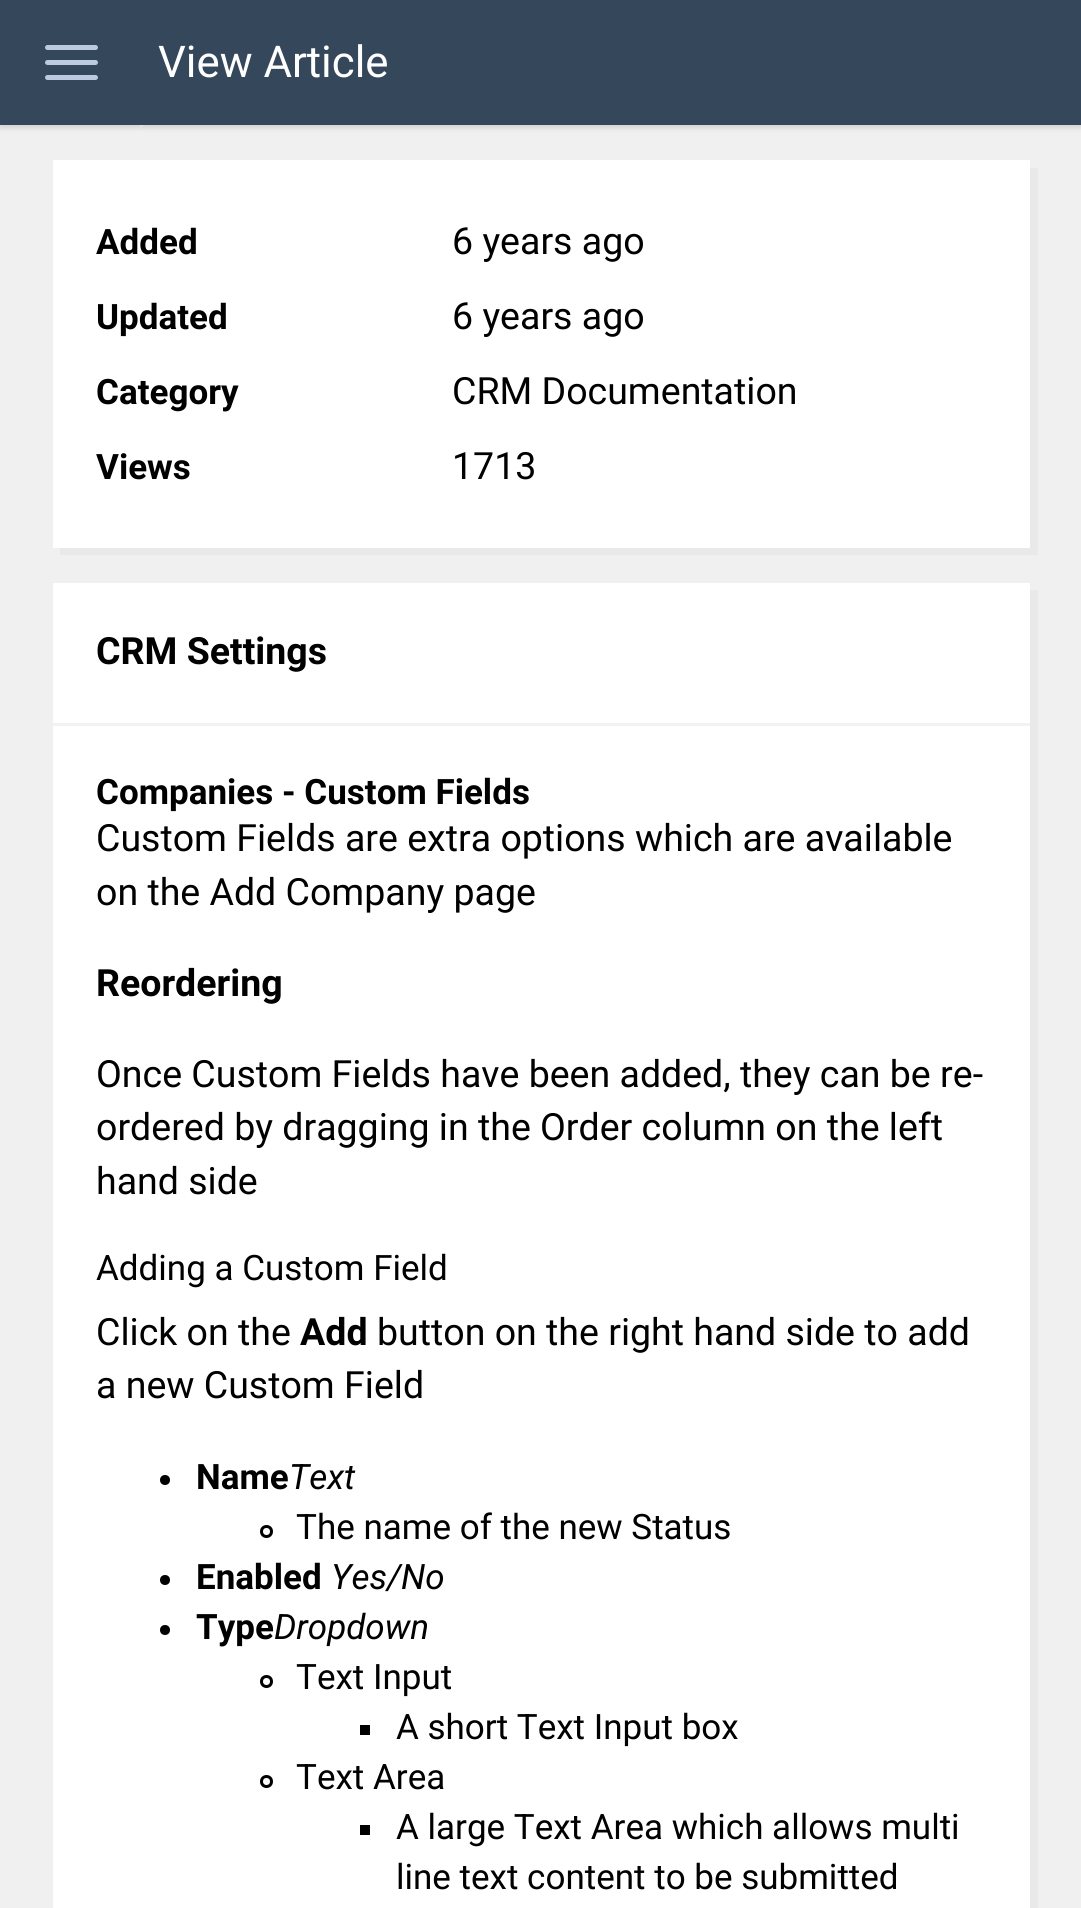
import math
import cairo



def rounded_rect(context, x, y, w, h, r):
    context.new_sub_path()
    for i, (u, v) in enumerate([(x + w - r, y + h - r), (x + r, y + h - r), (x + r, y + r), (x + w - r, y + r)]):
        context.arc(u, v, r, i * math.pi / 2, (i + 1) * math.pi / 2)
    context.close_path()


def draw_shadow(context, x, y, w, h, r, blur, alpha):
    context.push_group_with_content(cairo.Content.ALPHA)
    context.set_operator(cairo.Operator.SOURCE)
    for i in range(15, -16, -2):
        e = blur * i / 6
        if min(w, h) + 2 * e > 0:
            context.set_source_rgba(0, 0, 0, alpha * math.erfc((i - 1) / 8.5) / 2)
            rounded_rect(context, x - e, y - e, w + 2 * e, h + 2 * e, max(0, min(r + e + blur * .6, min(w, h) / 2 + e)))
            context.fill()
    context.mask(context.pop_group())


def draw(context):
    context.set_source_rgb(240 / 255, 240 / 255, 240 / 255)
    context.paint()
    context.set_source_rgb(34 / 255, 36 / 255, 38 / 255)
    draw_shadow(context, 0, 3, 140, 125, 0, 2.5, 0.15)
    context.set_source_rgb(52 / 255, 71 / 255, 91 / 255)
    context.rectangle(0, 0, 140, 125)
    context.fill()
    context.set_source_rgb(187 / 255, 203 / 255, 221 / 255)
    rounded_rect(context, 45, 45, 53, 5, 2.5)
    context.fill()
    rounded_rect(context, 45, 60, 53, 5, 2.5)
    context.fill()
    rounded_rect(context, 45, 75, 53, 5, 2.5)
    context.fill()
    context.set_source_rgb(90 / 255, 90 / 255, 90 / 255)
    draw_shadow(context, 143, 3, 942, 125, 0, 2.5, 0.2)
    context.set_source_rgb(52 / 255, 71 / 255, 91 / 255)
    context.rectangle(140, 0, 941, 125)
    context.fill()
    context.set_source_rgb(233 / 255, 233 / 255, 233 / 255)
    context.new_path()
    context.move_to(60, 548)
    context.line_to(60, 555)
    context.line_to(1038, 555)
    context.line_to(1038, 168)
    context.line_to(1030, 168)
    context.line_to(1030, 548)
    context.close_path()
    context.fill()
    context.set_source_rgb(1, 1, 1)
    context.rectangle(53, 160, 977, 388)
    context.fill()
    context.set_source_rgb(233 / 255, 233 / 255, 233 / 255)
    context.new_path()
    context.move_to(60, 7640)
    context.line_to(60, 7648)
    context.line_to(1038, 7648)
    context.line_to(1038, 590)
    context.line_to(1030, 590)
    context.line_to(1030, 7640)
    context.close_path()
    context.fill()
    context.set_source_rgb(1, 1, 1)
    context.rectangle(53, 583, 977, 1325)
    context.fill()
    context.set_source_rgb(242 / 255, 242 / 255, 242 / 255)
    context.rectangle(53, 723, 977, 3)
    context.fill()
    context.set_source_rgb(0, 0, 0)
    context.arc(165, 1480, 5, 0, 2 * math.pi)
    context.fill()
    context.arc(266.5, 1531.5, 5, 0, 2 * math.pi)
    context.set_line_width(3)
    context.stroke()
    context.arc(165, 1580, 5, 0, 2 * math.pi)
    context.fill()
    context.arc(165, 1630, 5, 0, 2 * math.pi)
    context.fill()
    context.arc(266.5, 1681.5, 5, 0, 2 * math.pi)
    context.stroke()
    context.rectangle(360, 1725, 10, 10)
    context.fill()
    context.arc(266.5, 1781.5, 5, 0, 2 * math.pi)
    context.stroke()
    context.rectangle(360, 1825, 10, 10)
    context.fill()
    context.select_font_face("Roboto")
    context.set_font_size(43.75)
    context.set_source_rgb(1, 1, 1)
    context.move_to(158, 77)
    context.show_text("View Article")
    context.select_font_face("Roboto", cairo.FontSlant.NORMAL, cairo.FontWeight.BOLD)
    context.set_font_size(35)
    context.set_source_rgb(0, 0, 0)
    context.move_to(96, 254)
    context.show_text("Added")
    context.select_font_face("Roboto")
    context.set_font_size(37.5)
    context.move_to(452, 254)
    context.show_text("6 years ago")
    context.select_font_face("Roboto", cairo.FontSlant.NORMAL, cairo.FontWeight.BOLD)
    context.set_font_size(35)
    context.move_to(96, 329)
    context.show_text("Updated")
    context.select_font_face("Roboto")
    context.set_font_size(37.5)
    context.move_to(452, 329)
    context.show_text("6 years ago")
    context.select_font_face("Roboto", cairo.FontSlant.NORMAL, cairo.FontWeight.BOLD)
    context.set_font_size(35)
    context.move_to(96, 404)
    context.show_text("Category")
    context.select_font_face("Roboto")
    context.set_font_size(37.5)
    context.move_to(452, 404)
    context.show_text("CRM Documentation")
    context.select_font_face("Roboto", cairo.FontSlant.NORMAL, cairo.FontWeight.BOLD)
    context.set_font_size(35)
    context.move_to(96, 479)
    context.show_text("Views")
    context.select_font_face("Roboto")
    context.set_font_size(37.5)
    context.move_to(452, 479)
    context.show_text("1713")
    context.select_font_face("Roboto", cairo.FontSlant.NORMAL, cairo.FontWeight.BOLD)
    context.move_to(96, 664)
    context.show_text("CRM Settings")
    context.set_font_size(35)
    context.move_to(96, 804)
    context.show_text("Companies - Custom Fields")
    context.select_font_face("Roboto")
    context.set_font_size(37.5)
    context.move_to(96, 851)
    context.show_text("Custom Fields are extra options which are available")
    context.move_to(96, 905)
    context.show_text("on the Add Company page")
    context.select_font_face("Roboto", cairo.FontSlant.NORMAL, cairo.FontWeight.BOLD)
    context.move_to(96, 996)
    context.show_text("Reordering")
    context.select_font_face("Roboto")
    context.move_to(96, 1087)
    context.show_text("Once Custom Fields have been added, they can be re-")
    context.move_to(96, 1140)
    context.show_text("ordered by dragging in the Order column on the left")
    context.move_to(96, 1194)
    context.show_text("hand side")
    context.set_font_size(35)
    context.move_to(96, 1280)
    context.show_text("Adding a Custom Field")
    context.set_font_size(37.5)
    context.move_to(96, 1345)
    context.show_text("Click on the")
    context.select_font_face("Roboto", cairo.FontSlant.NORMAL, cairo.FontWeight.BOLD)
    context.move_to(300, 1345)
    context.show_text("Add")
    context.select_font_face("Roboto")
    context.move_to(377, 1345)
    context.show_text("button on the right hand side to add")
    context.move_to(96, 1398)
    context.show_text("a new Custom Field")
    context.select_font_face("Roboto", cairo.FontSlant.NORMAL, cairo.FontWeight.BOLD)
    context.set_font_size(35)
    context.move_to(196, 1489)
    context.show_text("Name")
    context.select_font_face("Roboto", cairo.FontSlant.ITALIC)
    context.move_to(289, 1489)
    context.show_text("Text")
    context.select_font_face("Roboto")
    context.move_to(296, 1539)
    context.show_text("The name of the new Status")
    context.select_font_face("Roboto", cairo.FontSlant.NORMAL, cairo.FontWeight.BOLD)
    context.move_to(196, 1589)
    context.show_text("Enabled")
    context.select_font_face("Roboto", cairo.FontSlant.ITALIC)
    context.move_to(331, 1589)
    context.show_text("Yes/No")
    context.select_font_face("Roboto", cairo.FontSlant.NORMAL, cairo.FontWeight.BOLD)
    context.move_to(196, 1639)
    context.show_text("Type")
    context.select_font_face("Roboto", cairo.FontSlant.ITALIC)
    context.move_to(274, 1639)
    context.show_text("Dropdown")
    context.select_font_face("Roboto")
    context.move_to(296, 1689)
    context.show_text("Text Input")
    context.move_to(396, 1739)
    context.show_text("A short Text Input box")
    context.move_to(296, 1789)
    context.show_text("Text Area")
    context.move_to(396, 1839)
    context.show_text("A large Text Area which allows multi")
    context.move_to(396, 1889)
    context.show_text("line text content to be submitted")


surface = cairo.ImageSurface(cairo.Format.RGB24, 1081, 1908)
context = cairo.Context(surface)
options = cairo.FontOptions()
options.set_hint_metrics(cairo.HintMetrics.OFF)
options.set_hint_style(cairo.HintStyle.NONE)
context.set_font_options(options)
context.set_miter_limit(4)
draw(context)
surface.write_to_png("out.png")
